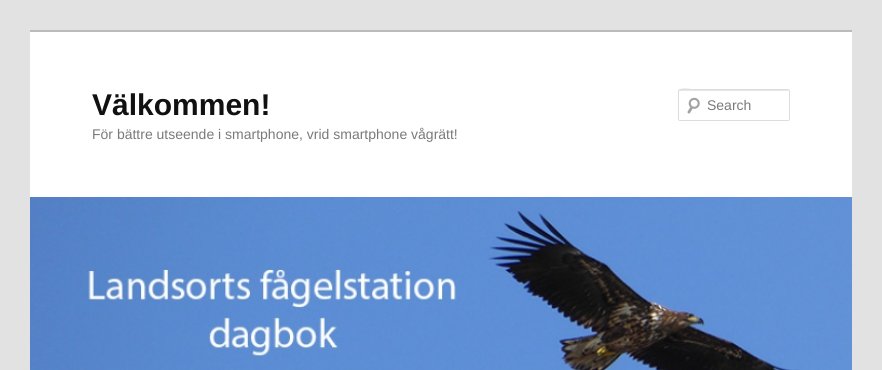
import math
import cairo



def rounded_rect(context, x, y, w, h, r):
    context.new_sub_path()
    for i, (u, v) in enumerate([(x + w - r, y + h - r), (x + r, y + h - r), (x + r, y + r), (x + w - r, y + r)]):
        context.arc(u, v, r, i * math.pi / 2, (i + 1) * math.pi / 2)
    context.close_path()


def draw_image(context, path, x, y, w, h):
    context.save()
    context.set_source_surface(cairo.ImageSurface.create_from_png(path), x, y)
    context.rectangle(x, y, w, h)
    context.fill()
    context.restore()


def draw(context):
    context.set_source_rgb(226 / 255, 226 / 255, 226 / 255)
    context.paint()
    context.set_source_rgb(1, 1, 1)
    context.rectangle(30, 32, 822, 165)
    context.fill()
    context.set_source_rgb(187 / 255, 187 / 255, 187 / 255)
    context.rectangle(30, 30, 822, 2)
    context.fill()
    draw_image(context, "images/1.png", 687, 97, 13, 17)
    context.set_source_rgb(230 / 255, 230 / 255, 230 / 255)
    context.new_path()
    context.move_to(680, 91)
    context.line_to(789, 91)
    context.line_to(789, 92)
    context.line_to(788, 90)
    context.line_to(698, 90)
    context.curve_to(694, 90, 679, 85, 679, 92)
    context.curve_to(679, 91, 679, 91, 680, 91)
    context.close_path()
    context.fill()
    rounded_rect(context, 678.5, 89.5, 111, 31, 1.5)
    context.set_source_rgb(221 / 255, 221 / 255, 221 / 255)
    context.set_line_width(1)
    context.stroke()
    draw_image(context, "images/2.png", 30, 197, 822, 173)
    context.select_font_face("Liberation Sans", cairo.FontSlant.NORMAL, cairo.FontWeight.BOLD)
    context.set_font_size(30)
    context.set_source_rgb(17 / 255, 17 / 255, 17 / 255)
    context.move_to(92, 115)
    context.show_text("Välkommen!")
    context.select_font_face("Liberation Sans")
    context.set_font_size(14)
    context.set_source_rgb(122 / 255, 122 / 255, 122 / 255)
    context.move_to(92, 139)
    context.show_text("För bättre utseende i smartphone, vrid smartphone vågrätt!")
    context.move_to(707, 110)
    context.show_text("Search")


surface = cairo.ImageSurface(cairo.Format.RGB24, 882, 370)
context = cairo.Context(surface)
options = cairo.FontOptions()
options.set_hint_metrics(cairo.HintMetrics.OFF)
options.set_hint_style(cairo.HintStyle.NONE)
context.set_font_options(options)
context.set_miter_limit(4)
draw(context)
surface.write_to_png("out.png")
